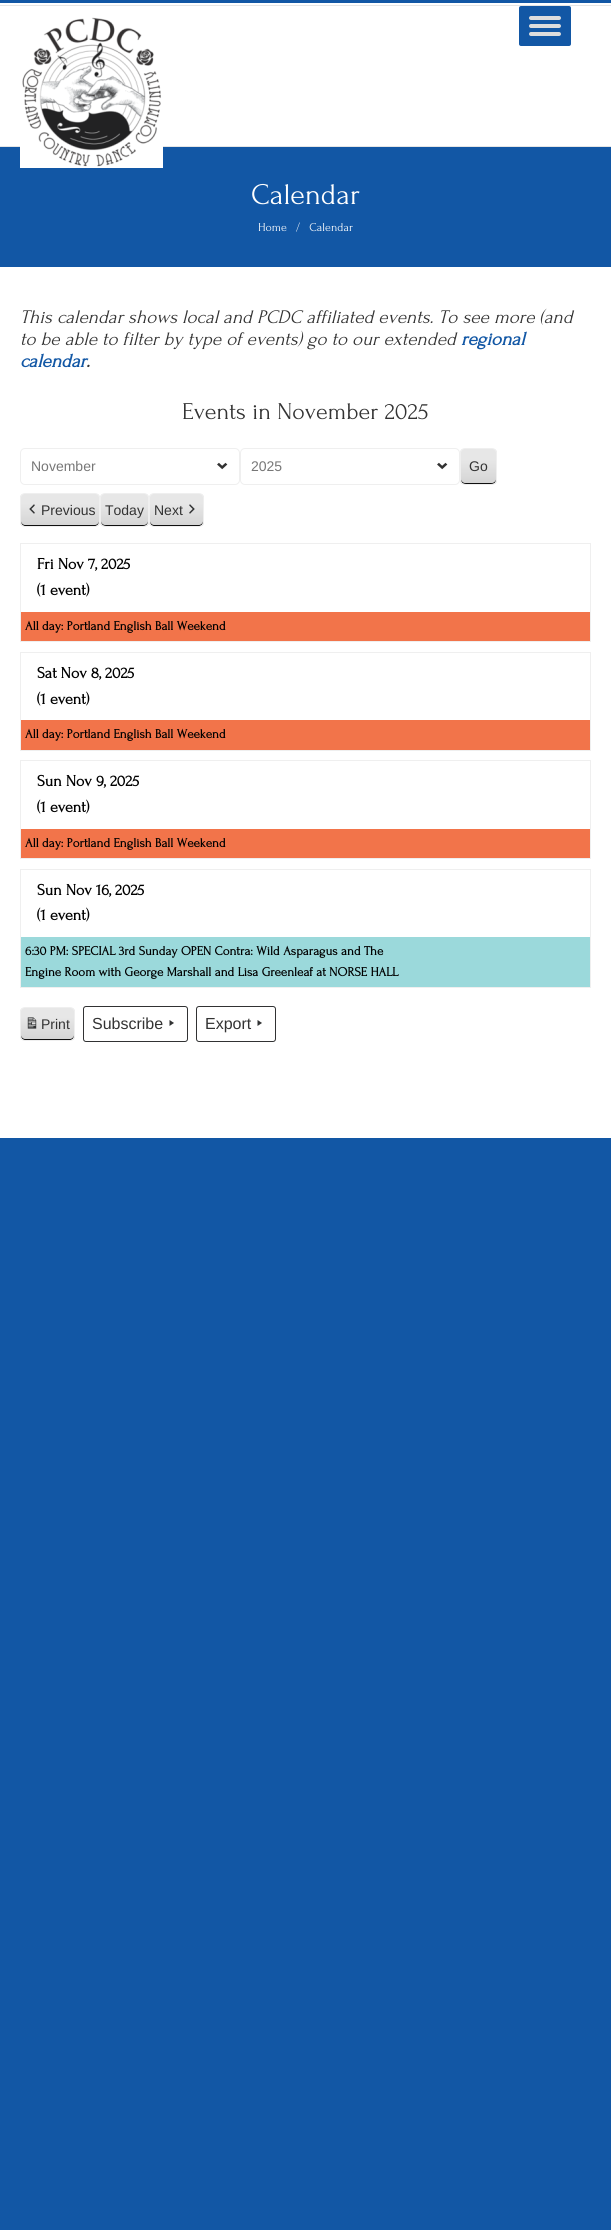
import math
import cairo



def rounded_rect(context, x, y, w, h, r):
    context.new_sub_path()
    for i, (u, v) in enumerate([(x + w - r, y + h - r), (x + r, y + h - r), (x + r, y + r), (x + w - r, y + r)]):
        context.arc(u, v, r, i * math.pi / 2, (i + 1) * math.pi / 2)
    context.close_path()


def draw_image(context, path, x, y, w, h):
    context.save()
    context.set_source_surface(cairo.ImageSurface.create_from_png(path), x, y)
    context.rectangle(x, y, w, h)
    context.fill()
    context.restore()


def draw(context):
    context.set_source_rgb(18 / 255, 87 / 255, 165 / 255)
    context.paint()
    context.set_source_rgb(1, 1, 1)
    context.rectangle(0, 3, 611, 1135)
    context.fill()
    context.set_source_rgb(229 / 255, 229 / 255, 229 / 255)
    context.rectangle(0, 5, 611, 1)
    context.fill()
    context.rectangle(0, 146, 611, 1)
    context.fill()
    context.set_source_rgb(18 / 255, 87 / 255, 165 / 255)
    context.rectangle(0, 147, 611, 120)
    context.fill()
    draw_image(context, "images/1.png", 20, 17, 143, 151)
    rounded_rect(context, 519, 6, 52, 40, 2)
    context.fill()
    context.set_source_rgb(221 / 255, 221 / 255, 221 / 255)
    rounded_rect(context, 529, 16, 32, 4, 2)
    context.fill()
    rounded_rect(context, 529, 24, 32, 4, 2)
    context.fill()
    rounded_rect(context, 529, 32, 32, 4, 2)
    context.fill()
    draw_image(context, "images/2.png", 217, 462, 11, 8)
    rounded_rect(context, 20.5, 448.5, 219, 36, 4.5)
    context.set_source_rgb(239 / 255, 239 / 255, 239 / 255)
    context.set_line_width(1)
    context.stroke()
    draw_image(context, "images/2.png", 437, 462, 11, 8)
    rounded_rect(context, 240.5, 448.5, 219, 36, 4.5)
    context.stroke()
    context.save()
    rounded_rect(context, 460, 448, 37, 37, 5)
    context.clip()
    gradient = cairo.LinearGradient(479, 484, 479, 449)
    gradient.add_color_stop_rgba(0, 212 / 255, 212 / 255, 212 / 255, 1)
    gradient.add_color_stop_rgba(0.7, 231 / 255, 231 / 255, 231 / 255, 1)
    context.set_source(gradient)
    context.rectangle(460, 449, 37, 35)
    context.fill()
    context.restore()
    context.set_source_rgb(15 / 255, 15 / 255, 15 / 255)
    context.new_path()
    context.move_to(461, 479)
    context.curve_to(461, 484.5, 465, 484, 469.5, 484)
    context.line_to(487.5, 484)
    context.curve_to(492, 484, 496, 484.5, 496, 479)
    context.curve_to(496, 481, 494, 483, 492, 483)
    context.line_to(465, 483)
    context.curve_to(463, 483, 461, 481, 461, 479)
    context.close_path()
    context.fill()
    rounded_rect(context, 460.5, 448.5, 36, 36, 4.5)
    context.set_source_rgb(239 / 255, 239 / 255, 239 / 255)
    context.stroke()
    context.save()
    rounded_rect(context, 20, 493, 80, 34, 5)
    context.clip()
    gradient = cairo.LinearGradient(60, 526, 60, 494)
    gradient.add_color_stop_rgba(0, 212 / 255, 212 / 255, 212 / 255, 1)
    gradient.add_color_stop_rgba(0.7, 231 / 255, 231 / 255, 231 / 255, 1)
    context.set_source(gradient)
    context.rectangle(20, 494, 80, 32)
    context.fill()
    context.restore()
    context.set_source_rgb(15 / 255, 15 / 255, 15 / 255)
    context.new_path()
    context.move_to(21, 521)
    context.curve_to(21, 529, 32, 526, 37, 526)
    context.line_to(83, 526)
    context.curve_to(88, 526, 99, 529, 99, 521)
    context.curve_to(99, 523, 97, 525, 95, 525)
    context.line_to(25, 525)
    context.curve_to(23, 525, 21, 523, 21, 521)
    context.close_path()
    context.fill()
    rounded_rect(context, 20.5, 493.5, 79, 33, 4.5)
    context.set_source_rgb(239 / 255, 239 / 255, 239 / 255)
    context.stroke()
    draw_image(context, "images/3.png", 29, 504, 6, 10)
    context.save()
    rounded_rect(context, 100, 493, 49, 34, 5)
    context.clip()
    gradient = cairo.LinearGradient(125, 526, 125, 494)
    gradient.add_color_stop_rgba(0, 212 / 255, 212 / 255, 212 / 255, 1)
    gradient.add_color_stop_rgba(0.7, 231 / 255, 231 / 255, 231 / 255, 1)
    context.set_source(gradient)
    context.rectangle(100, 494, 49, 32)
    context.fill()
    context.restore()
    context.set_source_rgb(15 / 255, 15 / 255, 15 / 255)
    context.new_path()
    context.move_to(101, 521)
    context.curve_to(101, 527, 107, 526, 112, 526)
    context.line_to(138, 526)
    context.curve_to(142, 526, 148, 527, 148, 521)
    context.curve_to(148, 523, 146, 525, 144, 525)
    context.line_to(105, 525)
    context.curve_to(103, 525, 101, 523, 101, 521)
    context.close_path()
    context.fill()
    rounded_rect(context, 100.5, 493.5, 48, 33, 4.5)
    context.set_source_rgb(239 / 255, 239 / 255, 239 / 255)
    context.stroke()
    context.save()
    rounded_rect(context, 149, 493, 55, 34, 5)
    context.clip()
    gradient = cairo.LinearGradient(177, 526, 177, 494)
    gradient.add_color_stop_rgba(0, 212 / 255, 212 / 255, 212 / 255, 1)
    gradient.add_color_stop_rgba(0.7, 231 / 255, 231 / 255, 231 / 255, 1)
    context.set_source(gradient)
    context.rectangle(149, 494, 55, 32)
    context.fill()
    context.restore()
    context.set_source_rgb(15 / 255, 15 / 255, 15 / 255)
    context.new_path()
    context.move_to(150, 521)
    context.curve_to(150, 528, 157, 526, 162, 526)
    context.line_to(192, 526)
    context.curve_to(196, 526, 203, 528, 203, 521)
    context.curve_to(203, 523, 201, 525, 199, 525)
    context.line_to(154, 525)
    context.curve_to(152, 525, 150, 523, 150, 521)
    context.close_path()
    context.fill()
    rounded_rect(context, 149.5, 493.5, 54, 33, 4.5)
    context.set_source_rgb(239 / 255, 239 / 255, 239 / 255)
    context.stroke()
    draw_image(context, "images/4.png", 189, 504, 6, 10)
    context.rectangle(20.5, 543.5, 570, 98)
    context.stroke()
    context.set_source_rgb(242 / 255, 116 / 255, 74 / 255)
    context.rectangle(21, 612, 569, 29)
    context.fill()
    context.rectangle(20.5, 652.5, 570, 98)
    context.set_source_rgb(239 / 255, 239 / 255, 239 / 255)
    context.stroke()
    context.set_source_rgb(242 / 255, 116 / 255, 74 / 255)
    context.rectangle(21, 720, 569, 30)
    context.fill()
    context.rectangle(20.5, 760.5, 570, 98)
    context.set_source_rgb(239 / 255, 239 / 255, 239 / 255)
    context.stroke()
    context.set_source_rgb(242 / 255, 116 / 255, 74 / 255)
    context.rectangle(21, 829, 569, 29)
    context.fill()
    context.rectangle(20.5, 869.5, 570, 118)
    context.set_source_rgb(239 / 255, 239 / 255, 239 / 255)
    context.stroke()
    context.set_source_rgb(155 / 255, 217 / 255, 219 / 255)
    context.rectangle(21, 937, 569, 50)
    context.fill()
    context.save()
    rounded_rect(context, 20, 1007, 55, 34, 5)
    context.clip()
    gradient = cairo.LinearGradient(48, 1040, 48, 1008)
    gradient.add_color_stop_rgba(0, 212 / 255, 212 / 255, 212 / 255, 1)
    gradient.add_color_stop_rgba(0.7, 231 / 255, 231 / 255, 231 / 255, 1)
    context.set_source(gradient)
    context.rectangle(20, 1008, 55, 32)
    context.fill()
    context.restore()
    context.set_source_rgb(15 / 255, 15 / 255, 15 / 255)
    context.new_path()
    context.move_to(21, 1035)
    context.curve_to(21, 1042, 28, 1040, 32, 1040)
    context.line_to(62, 1040)
    context.curve_to(67, 1040, 74, 1042, 74, 1035)
    context.curve_to(74, 1037, 72, 1039, 70, 1039)
    context.line_to(25, 1039)
    context.curve_to(23, 1039, 21, 1037, 21, 1035)
    context.close_path()
    context.fill()
    rounded_rect(context, 20.5, 1007.5, 54, 33, 4.5)
    context.set_source_rgb(239 / 255, 239 / 255, 239 / 255)
    context.stroke()
    draw_image(context, "images/5.png", 27, 1017, 10, 12)
    rounded_rect(context, 83.5, 1006.5, 104, 35, 2.5)
    context.set_source_rgb(49 / 255, 50 / 255, 51 / 255)
    context.stroke()
    context.new_path()
    context.move_to(169.5, 1020)
    context.line_to(174, 1023)
    context.line_to(169.5, 1026)
    context.close_path()
    context.fill()
    rounded_rect(context, 196.5, 1006.5, 79, 35, 2.5)
    context.stroke()
    context.new_path()
    context.move_to(257.5, 1020)
    context.line_to(262, 1023)
    context.line_to(257.5, 1026)
    context.close_path()
    context.fill()
    context.select_font_face("Forum")
    context.set_font_size(30)
    context.set_source_rgb(1, 1, 1)
    context.move_to(251, 204)
    context.show_text("Calendar")
    context.set_font_size(12)
    context.move_to(258, 231)
    context.show_text("Home")
    context.move_to(296, 231)
    context.show_text("/   Calendar")
    context.select_font_face("Forum", cairo.FontSlant.ITALIC)
    context.set_font_size(19.2)
    context.set_source_rgb(51 / 255, 51 / 255, 51 / 255)
    context.move_to(20, 323)
    context.show_text("This calendar shows local and PCDC affiliated events. To see more (and")
    context.move_to(20, 345)
    context.show_text("to be able to filter by type of events) go to our extended")
    context.select_font_face("Forum", cairo.FontSlant.ITALIC, cairo.FontWeight.BOLD)
    context.set_source_rgb(18 / 255, 87 / 255, 165 / 255)
    context.move_to(461, 345)
    context.show_text("regional")
    context.move_to(20, 367)
    context.show_text("calendar")
    context.set_source_rgb(51 / 255, 51 / 255, 51 / 255)
    context.move_to(86, 367)
    context.show_text(".")
    context.select_font_face("Forum")
    context.set_font_size(24)
    context.move_to(182, 419)
    context.show_text("Events in November 2025")
    context.select_font_face("Liberation Sans")
    context.set_font_size(14)
    context.set_source_rgb(119 / 255, 119 / 255, 119 / 255)
    context.move_to(31, 471)
    context.show_text("November")
    context.move_to(251, 471)
    context.show_text("2025")
    context.set_source_rgb(51 / 255, 51 / 255, 51 / 255)
    context.move_to(469, 471)
    context.show_text("Go")
    context.move_to(41, 515)
    context.show_text("Previous")
    context.move_to(105, 515)
    context.show_text("Today")
    context.move_to(154, 515)
    context.show_text("Next")
    context.select_font_face("Forum", cairo.FontSlant.NORMAL, cairo.FontWeight.BOLD)
    context.set_font_size(16)
    context.set_source_rgb(0, 0, 0)
    context.move_to(37, 569)
    context.show_text("Fri Nov 7, 2025")
    context.move_to(37, 595)
    context.show_text("(1 event)")
    context.set_font_size(13)
    context.move_to(25, 630)
    context.show_text("All day: Portland English Ball Weekend")
    context.set_font_size(16)
    context.move_to(37, 678)
    context.show_text("Sat Nov 8, 2025")
    context.move_to(37, 704)
    context.show_text("(1 event)")
    context.set_font_size(13)
    context.move_to(25, 738)
    context.show_text("All day: Portland English Ball Weekend")
    context.set_font_size(16)
    context.move_to(37, 786)
    context.show_text("Sun Nov 9, 2025")
    context.move_to(37, 812)
    context.show_text("(1 event)")
    context.set_font_size(13)
    context.move_to(25, 847)
    context.show_text("All day: Portland English Ball Weekend")
    context.set_font_size(16)
    context.move_to(37, 895)
    context.show_text("Sun Nov 16, 2025")
    context.move_to(37, 920)
    context.show_text("(1 event)")
    context.set_font_size(13)
    context.move_to(25, 955)
    context.show_text("6:30 PM: SPECIAL 3rd Sunday OPEN Contra: Wild Asparagus and The")
    context.move_to(25, 976)
    context.show_text("Engine Room with George Marshall and Lisa Greenleaf at NORSE HALL")
    context.select_font_face("Liberation Sans")
    context.set_font_size(14)
    context.set_source_rgb(51 / 255, 51 / 255, 51 / 255)
    context.move_to(41, 1029)
    context.show_text("Print")
    context.set_font_size(16)
    context.move_to(92, 1029)
    context.show_text("Subscribe")
    context.move_to(205, 1029)
    context.show_text("Export")


surface = cairo.ImageSurface(cairo.Format.RGB24, 611, 2230)
context = cairo.Context(surface)
options = cairo.FontOptions()
options.set_hint_metrics(cairo.HintMetrics.OFF)
options.set_hint_style(cairo.HintStyle.NONE)
context.set_font_options(options)
context.set_miter_limit(4)
draw(context)
surface.write_to_png("out.png")
